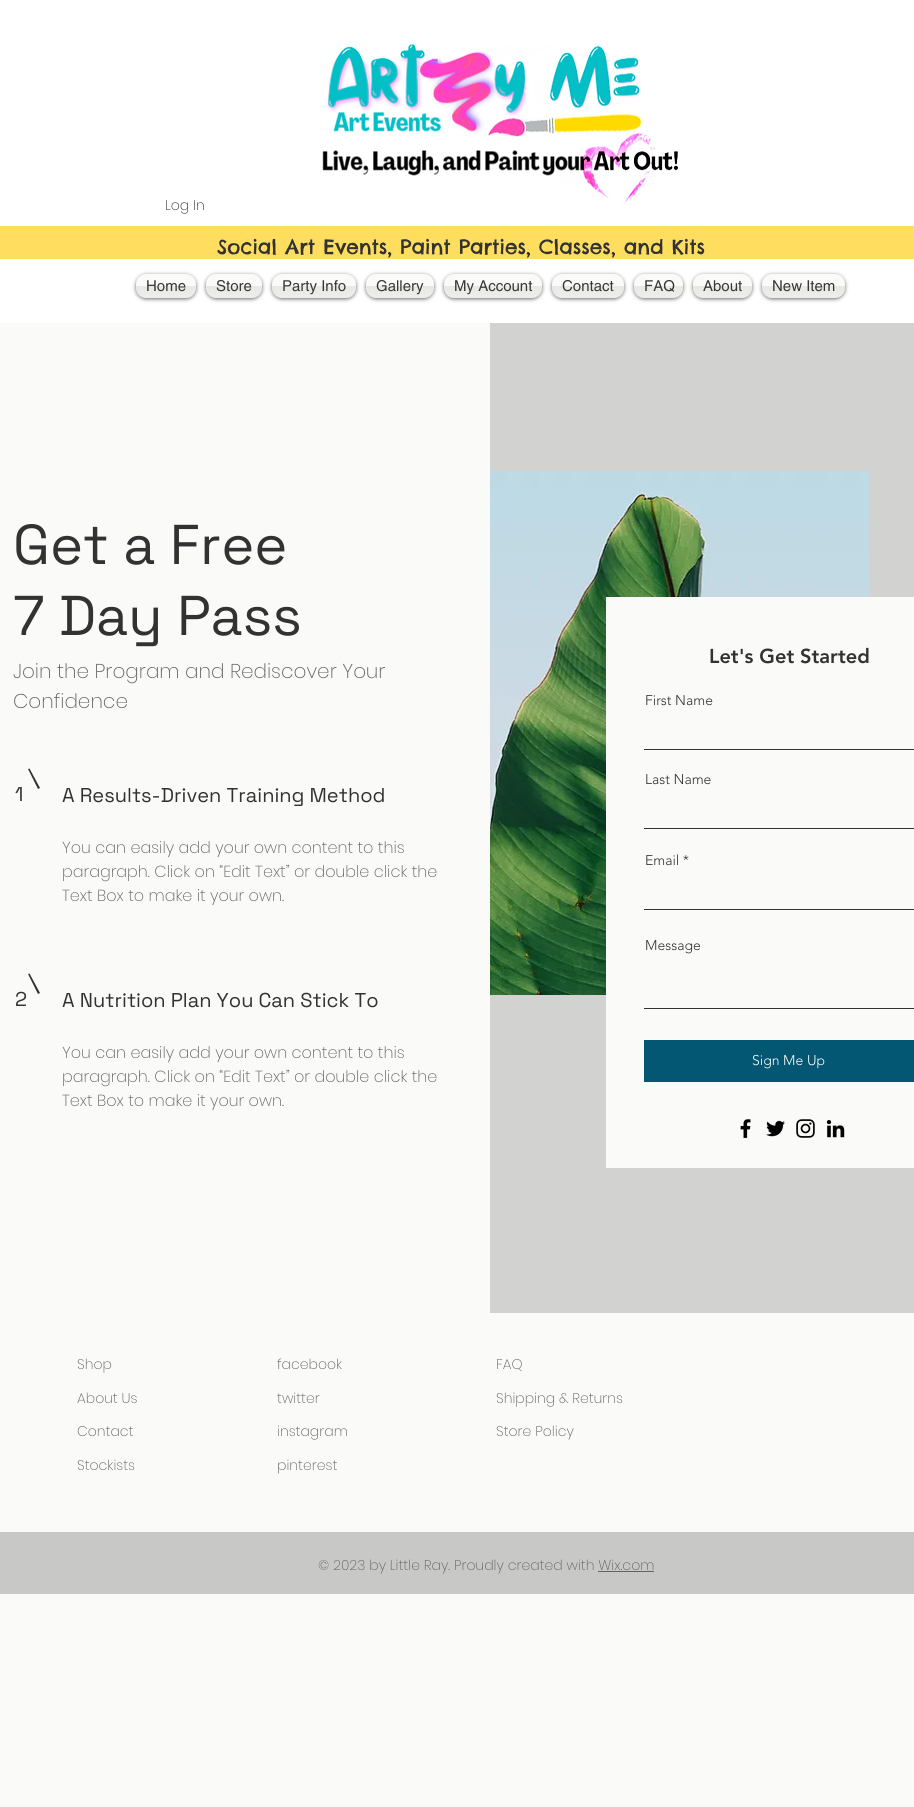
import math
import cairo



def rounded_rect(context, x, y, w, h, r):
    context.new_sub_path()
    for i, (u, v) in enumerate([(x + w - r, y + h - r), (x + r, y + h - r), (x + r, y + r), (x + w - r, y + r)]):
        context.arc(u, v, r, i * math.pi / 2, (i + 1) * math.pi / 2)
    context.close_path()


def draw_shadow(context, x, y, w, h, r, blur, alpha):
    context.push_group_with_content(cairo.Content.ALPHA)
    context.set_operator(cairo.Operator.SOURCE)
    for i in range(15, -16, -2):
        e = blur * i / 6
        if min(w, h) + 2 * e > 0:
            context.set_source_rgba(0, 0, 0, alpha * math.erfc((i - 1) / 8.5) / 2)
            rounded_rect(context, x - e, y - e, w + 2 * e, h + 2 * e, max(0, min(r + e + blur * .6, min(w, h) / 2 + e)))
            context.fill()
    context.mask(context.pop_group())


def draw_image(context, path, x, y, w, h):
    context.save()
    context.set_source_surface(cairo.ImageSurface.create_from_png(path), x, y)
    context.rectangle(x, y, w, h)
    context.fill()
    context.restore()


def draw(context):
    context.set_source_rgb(250 / 255, 251 / 255, 249 / 255)
    context.paint()
    context.set_source_rgb(1, 1, 1)
    context.rectangle(0, 0, 914, 323)
    context.fill()
    draw_image(context, "images/1.png", 322, 44, 356, 163)
    context.set_source_rgb(1, 222 / 255, 95 / 255)
    context.rectangle(0, 226, 914, 33)
    context.fill()
    context.set_source_rgb(0, 0, 0)
    draw_shadow(context, 136, 275, 60, 24, 10, 2, 0.6)
    context.set_source_rgb(250 / 255, 251 / 255, 249 / 255)
    rounded_rect(context, 136, 274, 60, 24, 10)
    context.fill()
    draw_image(context, "images/2.png", 136, 286, 60, 12)
    context.set_source_rgb(0, 0, 0)
    draw_shadow(context, 206, 275, 56, 24, 10, 2, 0.6)
    context.set_source_rgb(250 / 255, 251 / 255, 249 / 255)
    rounded_rect(context, 206, 274, 56, 24, 10)
    context.fill()
    draw_image(context, "images/3.png", 206, 286, 56, 12)
    context.set_source_rgb(0, 0, 0)
    draw_shadow(context, 272, 275, 84, 24, 10, 2, 0.6)
    context.set_source_rgb(250 / 255, 251 / 255, 249 / 255)
    rounded_rect(context, 272, 274, 84, 24, 10)
    context.fill()
    draw_image(context, "images/4.png", 272, 286, 84, 12)
    context.set_source_rgb(0, 0, 0)
    draw_shadow(context, 366, 275, 68, 24, 10, 2, 0.6)
    context.set_source_rgb(250 / 255, 251 / 255, 249 / 255)
    rounded_rect(context, 366, 274, 68, 24, 10)
    context.fill()
    draw_image(context, "images/5.png", 366, 286, 68, 12)
    context.set_source_rgb(0, 0, 0)
    draw_shadow(context, 444, 275, 98, 24, 10, 2, 0.6)
    context.set_source_rgb(250 / 255, 251 / 255, 249 / 255)
    rounded_rect(context, 444, 274, 98, 24, 10)
    context.fill()
    draw_image(context, "images/6.png", 444, 286, 98, 12)
    context.set_source_rgb(0, 0, 0)
    draw_shadow(context, 552, 275, 72, 24, 10, 2, 0.6)
    context.set_source_rgb(250 / 255, 251 / 255, 249 / 255)
    rounded_rect(context, 552, 274, 72, 24, 10)
    context.fill()
    draw_image(context, "images/7.png", 552, 286, 72, 12)
    context.set_source_rgb(0, 0, 0)
    draw_shadow(context, 634, 275, 49, 24, 10, 2, 0.6)
    context.set_source_rgb(250 / 255, 251 / 255, 249 / 255)
    rounded_rect(context, 634, 274, 49, 24, 10)
    context.fill()
    draw_image(context, "images/8.png", 634, 286, 49, 12)
    context.set_source_rgb(0, 0, 0)
    draw_shadow(context, 693, 275, 59, 24, 10, 2, 0.6)
    context.set_source_rgb(250 / 255, 251 / 255, 249 / 255)
    rounded_rect(context, 693, 274, 59, 24, 10)
    context.fill()
    draw_image(context, "images/9.png", 693, 286, 59, 12)
    context.set_source_rgb(0, 0, 0)
    draw_shadow(context, 762, 275, 83, 24, 10, 2, 0.6)
    context.set_source_rgb(250 / 255, 251 / 255, 249 / 255)
    rounded_rect(context, 762, 274, 83, 24, 10)
    context.fill()
    draw_image(context, "images/10.png", 762, 286, 83, 12)
    context.set_source_rgb(50 / 255, 50 / 255, 50 / 255)
    context.new_path()
    context.move_to(28, 769)
    context.line_to(29.5, 768.5)
    context.line_to(40, 788)
    context.line_to(38, 789)
    context.close_path()
    context.fill()
    context.new_path()
    context.move_to(28, 974)
    context.line_to(29.5, 973.5)
    context.line_to(40, 993)
    context.line_to(38, 994)
    context.close_path()
    context.fill()
    context.set_source_rgb(210 / 255, 211 / 255, 209 / 255)
    context.rectangle(490, 323, 424, 990)
    context.fill()
    draw_image(context, "images/11.png", 490, 471, 380, 524)
    context.set_source_rgb(250 / 255, 251 / 255, 249 / 255)
    context.rectangle(606, 597, 308, 571)
    context.fill()
    context.set_source_rgb(50 / 255, 50 / 255, 50 / 255)
    context.rectangle(644, 749, 270, 1)
    context.fill()
    context.rectangle(644, 828, 270, 1)
    context.fill()
    context.rectangle(644, 909, 270, 1)
    context.fill()
    context.rectangle(644, 1008, 270, 1)
    context.fill()
    context.set_source_rgb(3 / 255, 87 / 255, 114 / 255)
    context.rectangle(644, 1040, 270, 42)
    context.fill()
    draw_image(context, "images/12.png", 740, 1119, 11, 20)
    draw_image(context, "images/13.png", 766, 1120, 19, 17)
    draw_image(context, "images/14.png", 796, 1119, 19, 19)
    draw_image(context, "images/15.png", 826, 1119, 19, 19)
    context.set_source_rgb(200 / 255, 201 / 255, 199 / 255)
    context.rectangle(0, 1532, 914, 62)
    context.fill()
    context.set_source_rgb(100 / 255, 100 / 255, 100 / 255)
    context.rectangle(598, 1571, 56, 1)
    context.fill()
    context.select_font_face("Poppins ExtraLight")
    context.set_font_size(14)
    context.set_source_rgb(50 / 255, 50 / 255, 50 / 255)
    context.move_to(165, 210)
    context.show_text("Log In")
    context.select_font_face("Chelsea Market")
    context.set_font_size(20)
    context.move_to(217, 254)
    context.show_text("Social Art Events, Paint Parties, Classes, and Kits")
    context.select_font_face("helvetica")
    context.set_font_size(15)
    context.set_source_rgb(56 / 255, 56 / 255, 56 / 255)
    context.move_to(146, 291)
    context.show_text("Home")
    context.move_to(216, 291)
    context.show_text("Store")
    context.move_to(282, 291)
    context.show_text("Party Info")
    context.move_to(376, 291)
    context.show_text("Gallery")
    context.move_to(454, 291)
    context.show_text("My Account")
    context.move_to(562, 291)
    context.show_text("Contact")
    context.move_to(644, 291)
    context.show_text("FAQ")
    context.move_to(703, 291)
    context.show_text("About")
    context.move_to(772, 291)
    context.show_text("New Item")
    context.select_font_face("Space Grotesk")
    context.set_font_size(56)
    context.set_source_rgb(50 / 255, 50 / 255, 50 / 255)
    context.move_to(13, 564)
    context.show_text("Get a Free")
    context.move_to(13, 635)
    context.show_text("7 Day Pass")
    context.select_font_face("Poppins ExtraLight")
    context.set_font_size(20)
    context.set_source_rgb(100 / 255, 100 / 255, 100 / 255)
    context.move_to(13, 678)
    context.show_text("Join the Program and Rediscover Your")
    context.move_to(13, 708)
    context.show_text("Confidence")
    context.select_font_face("Space Grotesk")
    context.set_source_rgb(50 / 255, 50 / 255, 50 / 255)
    context.move_to(15, 801)
    context.show_text("1")
    context.move_to(62, 802)
    context.show_text("A Results-Driven Training Method")
    context.select_font_face("Poppins ExtraLight")
    context.set_font_size(16)
    context.set_source_rgb(100 / 255, 100 / 255, 100 / 255)
    context.move_to(62, 853)
    context.show_text("You can easily add your own content to this")
    context.move_to(62, 877)
    context.show_text("paragraph. Click on “Edit Text” or double click the")
    context.move_to(62, 901)
    context.show_text("Text Box to make it your own.")
    context.select_font_face("Space Grotesk")
    context.set_font_size(20)
    context.set_source_rgb(50 / 255, 50 / 255, 50 / 255)
    context.move_to(15, 1006)
    context.show_text("2")
    context.move_to(62, 1007)
    context.show_text("A Nutrition Plan You Can Stick To")
    context.select_font_face("Poppins ExtraLight")
    context.set_font_size(16)
    context.set_source_rgb(100 / 255, 100 / 255, 100 / 255)
    context.move_to(62, 1058)
    context.show_text("You can easily add your own content to this")
    context.move_to(62, 1082)
    context.show_text("paragraph. Click on “Edit Text” or double click the")
    context.move_to(62, 1106)
    context.show_text("Text Box to make it your own.")
    context.select_font_face("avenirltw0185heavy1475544 Black")
    context.set_font_size(20)
    context.set_source_rgb(50 / 255, 50 / 255, 50 / 255)
    context.move_to(709, 663)
    context.show_text("Let's Get Started")
    context.select_font_face("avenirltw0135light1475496 Light")
    context.set_font_size(14)
    context.move_to(645, 705)
    context.show_text("First Name")
    context.move_to(645, 784)
    context.show_text("Last Name")
    context.move_to(645, 865)
    context.show_text("Email *")
    context.move_to(645, 950)
    context.show_text("Message")
    context.set_source_rgb(250 / 255, 251 / 255, 249 / 255)
    context.move_to(752, 1065)
    context.show_text("Sign Me Up")
    context.select_font_face("Poppins ExtraLight")
    context.set_source_rgb(100 / 255, 100 / 255, 100 / 255)
    context.move_to(77, 1369)
    context.show_text("Shop")
    context.move_to(77, 1403)
    context.show_text("About Us")
    context.move_to(77, 1436)
    context.show_text("Contact")
    context.move_to(77, 1470)
    context.show_text("Stockists")
    context.move_to(277, 1369)
    context.show_text("facebook")
    context.move_to(277, 1403)
    context.show_text("twitter")
    context.move_to(277, 1436)
    context.show_text("instagram")
    context.move_to(277, 1470)
    context.show_text("pinterest")
    context.move_to(496, 1369)
    context.show_text("FAQ")
    context.move_to(496, 1403)
    context.show_text("Shipping & Returns")
    context.move_to(496, 1436)
    context.show_text("Store Policy")
    context.move_to(318, 1570)
    context.show_text("© 2023 by Little Ray. Proudly created with Wix.com")


surface = cairo.ImageSurface(cairo.Format.RGB24, 914, 1807)
context = cairo.Context(surface)
options = cairo.FontOptions()
options.set_hint_metrics(cairo.HintMetrics.OFF)
options.set_hint_style(cairo.HintStyle.NONE)
context.set_font_options(options)
context.set_miter_limit(4)
draw(context)
surface.write_to_png("out.png")
